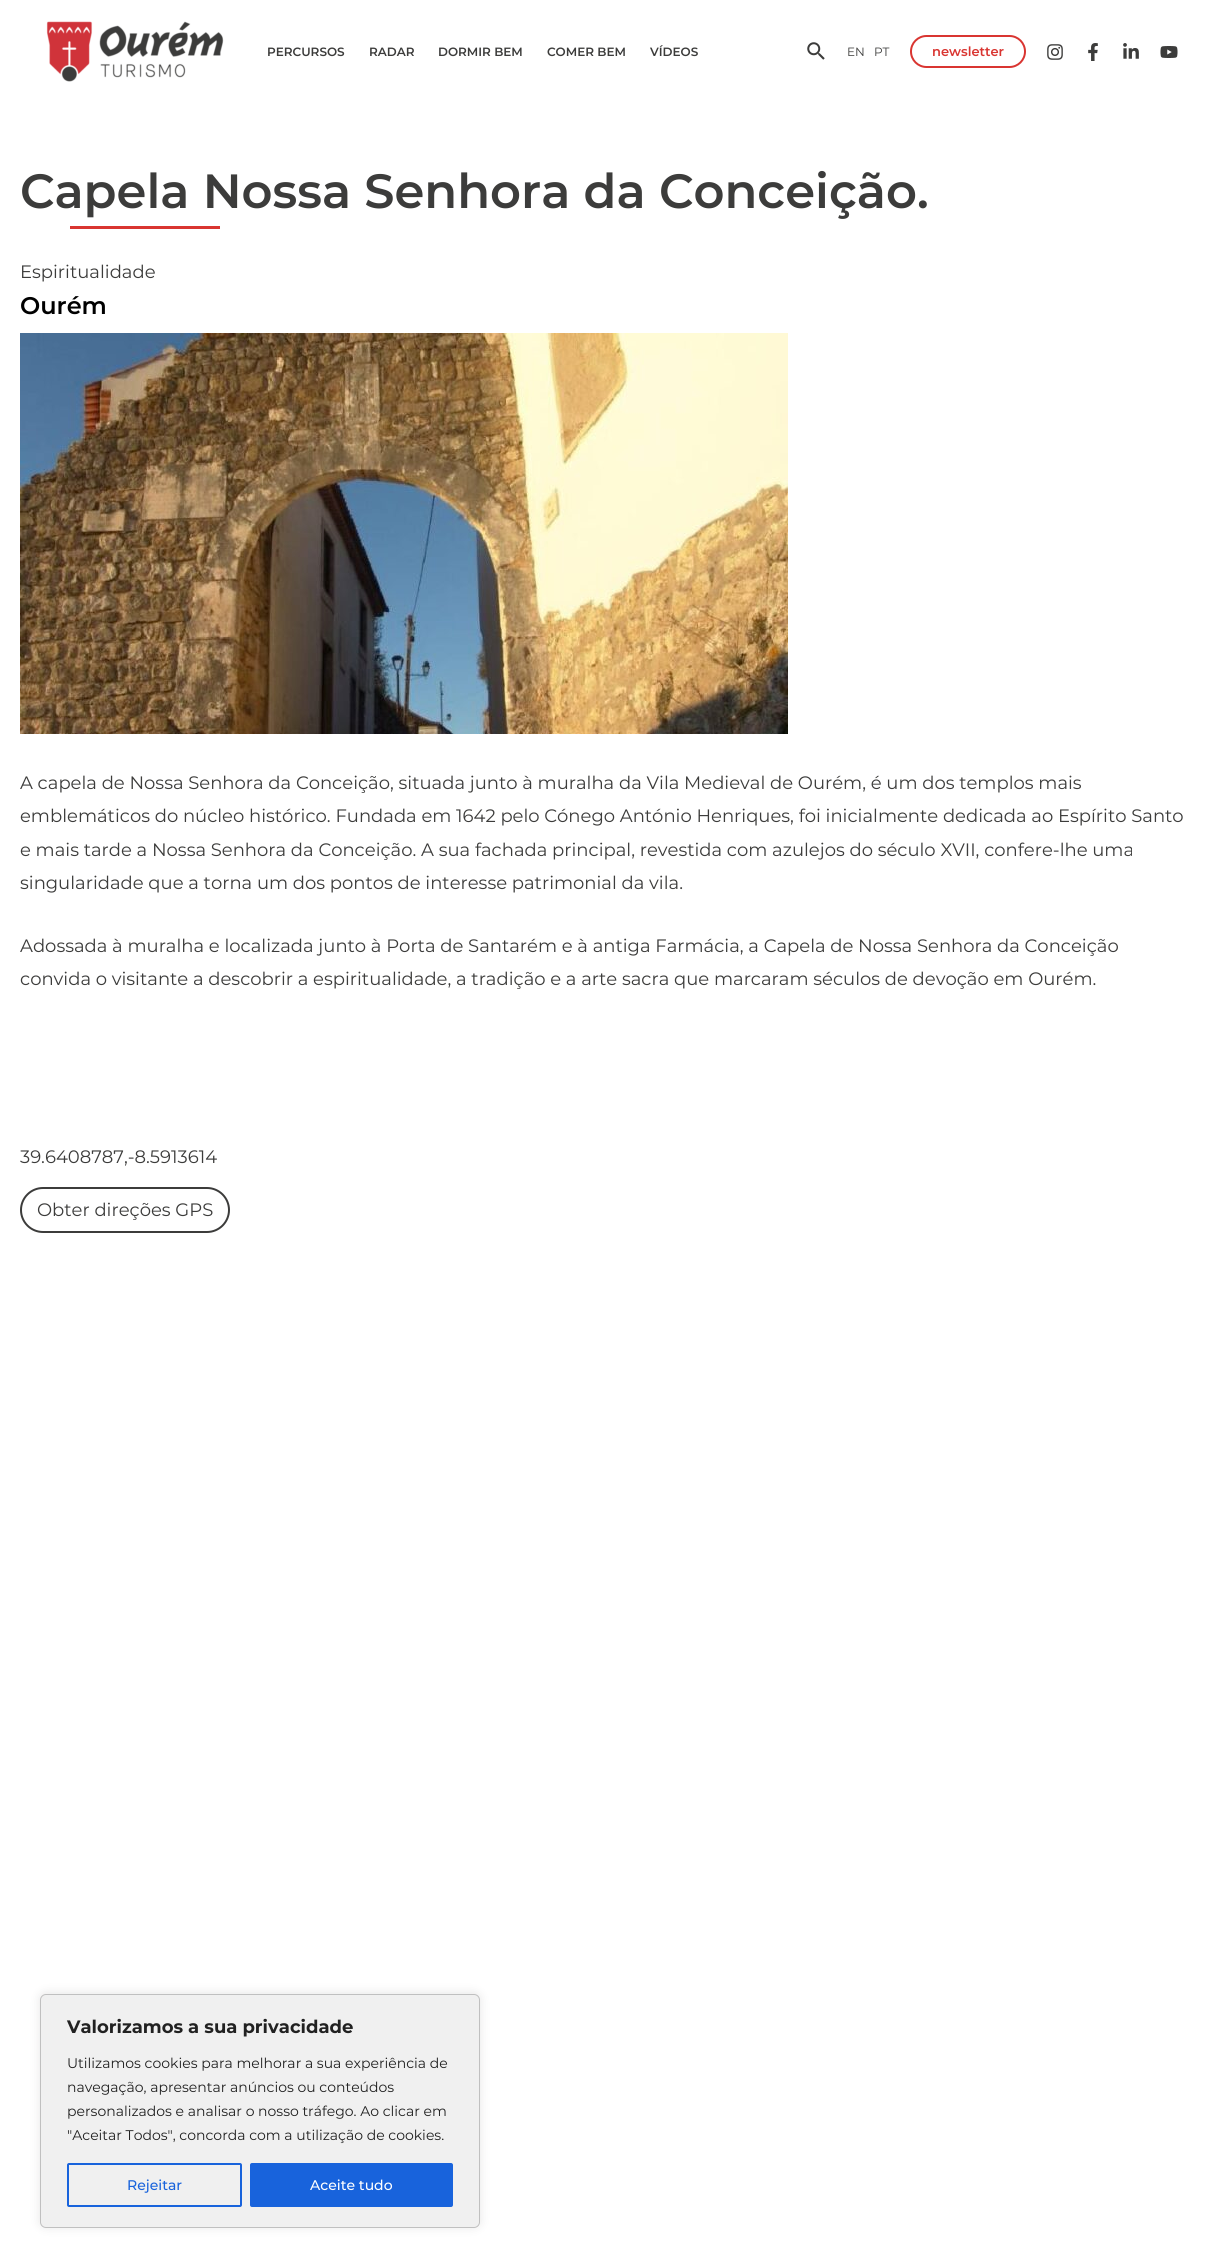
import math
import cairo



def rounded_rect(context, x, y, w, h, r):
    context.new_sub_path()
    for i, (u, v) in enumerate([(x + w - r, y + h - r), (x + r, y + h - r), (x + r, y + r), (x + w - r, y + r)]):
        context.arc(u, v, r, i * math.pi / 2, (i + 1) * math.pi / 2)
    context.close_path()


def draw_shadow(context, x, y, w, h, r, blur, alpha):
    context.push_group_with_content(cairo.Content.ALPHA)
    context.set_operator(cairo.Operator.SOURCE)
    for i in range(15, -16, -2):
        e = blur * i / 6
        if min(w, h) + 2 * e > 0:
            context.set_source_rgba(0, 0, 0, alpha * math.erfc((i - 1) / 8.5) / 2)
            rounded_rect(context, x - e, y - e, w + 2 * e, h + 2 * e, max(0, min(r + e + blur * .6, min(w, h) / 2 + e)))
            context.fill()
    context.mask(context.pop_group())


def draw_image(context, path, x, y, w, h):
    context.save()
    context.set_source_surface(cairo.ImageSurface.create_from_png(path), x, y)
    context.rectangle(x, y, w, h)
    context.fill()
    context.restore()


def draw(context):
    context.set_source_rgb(1, 1, 1)
    context.paint()
    draw_image(context, "images/1.png", 46, 21, 178, 61)
    draw_image(context, "images/2.png", 807, 42, 18, 18)
    rounded_rect(context, 911, 36, 114, 31, 15.5)
    context.set_source_rgb(217 / 255, 53 / 255, 49 / 255)
    context.stroke()
    draw_image(context, "images/3.png", 1047, 44, 16, 16)
    draw_image(context, "images/4.png", 1088, 43, 10, 18)
    draw_image(context, "images/5.png", 1123, 43, 16, 16)
    draw_image(context, "images/6.png", 1160, 46, 18, 12)
    context.rectangle(70, 226, 150, 3)
    context.fill()
    draw_image(context, "images/7.png", 20, 333, 768, 401)
    rounded_rect(context, 21, 1188, 208, 44, 22)
    context.set_source_rgb(60 / 255, 60 / 255, 59 / 255)
    context.stroke()
    context.set_source_rgb(172 / 255, 171 / 255, 171 / 255)
    draw_shadow(context, 40, 1993, 440, 234, 6, 5, 0.3)
    context.set_source_rgb(240 / 255, 240 / 255, 240 / 255)
    rounded_rect(context, 40.5, 1994.5, 439, 233, 5.5)
    context.fill_preserve()
    context.set_source_rgb(192 / 255, 192 / 255, 192 / 255)
    context.set_line_width(1)
    context.stroke()
    rounded_rect(context, 68, 2164, 173, 42, 1)
    context.set_source_rgb(24 / 255, 99 / 255, 220 / 255)
    context.set_line_width(2)
    context.stroke()
    rounded_rect(context, 251, 2164, 201, 42, 1)
    context.fill_preserve()
    context.stroke()
    context.select_font_face("Montserrat SemiBold")
    context.set_font_size(12)
    context.set_source_rgb(60 / 255, 60 / 255, 59 / 255)
    context.move_to(267, 56)
    context.show_text("PERCURSOS")
    context.move_to(369, 56)
    context.show_text("RADAR")
    context.move_to(438, 56)
    context.show_text("DORMIR BEM")
    context.move_to(547, 56)
    context.show_text("COMER BEM")
    context.move_to(650, 56)
    context.show_text("VÍDEOS")
    context.select_font_face("Montserrat")
    context.move_to(847, 56)
    context.show_text("EN")
    context.move_to(874, 56)
    context.show_text("PT")
    context.select_font_face("Montserrat SemiBold")
    context.set_font_size(13)
    context.set_source_rgb(217 / 255, 53 / 255, 49 / 255)
    context.move_to(932, 56)
    context.show_text("newsletter")
    context.set_font_size(48)
    context.set_source_rgb(60 / 255, 60 / 255, 59 / 255)
    context.move_to(20, 208)
    context.show_text("Capela Nossa Senhora da Conceição.")
    context.select_font_face("Montserrat")
    context.set_font_size(18)
    context.move_to(20, 278)
    context.show_text("Espiritualidade")
    context.select_font_face("Montserrat SemiBold")
    context.set_font_size(24)
    context.set_source_rgb(0, 0, 0)
    context.move_to(20, 314)
    context.show_text("Ourém")
    context.select_font_face("Montserrat")
    context.set_font_size(18)
    context.set_source_rgb(60 / 255, 60 / 255, 59 / 255)
    context.move_to(20, 789)
    context.show_text("A capela de Nossa Senhora da Conceição, situada junto à muralha da Vila Medieval de Ourém, é um dos templos mais")
    context.move_to(20, 822)
    context.show_text("emblemáticos do núcleo histórico. Fundada em 1642 pelo Cónego António Henriques, foi inicialmente dedicada ao Espírito Santo")
    context.move_to(20, 856)
    context.show_text("e mais tarde a Nossa Senhora da Conceição. A sua fachada principal, revestida com azulejos do século XVII, confere-lhe uma")
    context.move_to(20, 889)
    context.show_text("singularidade que a torna um dos pontos de interesse patrimonial da vila.")
    context.move_to(20, 952)
    context.show_text("Adossada à muralha e localizada junto à Porta de Santarém e à antiga Farmácia, a Capela de Nossa Senhora da Conceição")
    context.move_to(20, 985)
    context.show_text("convida o visitante a descobrir a espiritualidade, a tradição e a arte sacra que marcaram séculos de devoção em Ourém.")
    context.move_to(20, 1163)
    context.show_text("39.6408787,-8.5913614")
    context.move_to(37, 1216)
    context.show_text("Obter direções GPS")
    context.select_font_face("Montserrat", cairo.FontSlant.NORMAL, cairo.FontWeight.BOLD)
    context.set_source_rgb(33 / 255, 33 / 255, 33 / 255)
    context.move_to(67, 2033)
    context.show_text("Valorizamos a sua privacidade")
    context.select_font_face("Montserrat")
    context.set_font_size(14)
    context.move_to(67, 2068)
    context.show_text("Utilizamos cookies para melhorar a sua experiência de")
    context.move_to(67, 2092)
    context.show_text("navegação, apresentar anúncios ou conteúdos")
    context.move_to(67, 2116)
    context.show_text("personalizados e analisar o nosso tráfego. Ao clicar em")
    context.move_to(67, 2140)
    context.show_text("\"Aceitar Todos\", concorda com a utilização de cookies.")
    context.select_font_face("Montserrat Medium")
    context.set_source_rgb(24 / 255, 99 / 255, 220 / 255)
    context.move_to(127, 2190)
    context.show_text("Rejeitar")
    context.set_source_rgb(1, 1, 1)
    context.move_to(310, 2190)
    context.show_text("Aceite tudo")


surface = cairo.ImageSurface(cairo.Format.RGB24, 1213, 2268)
context = cairo.Context(surface)
options = cairo.FontOptions()
options.set_hint_metrics(cairo.HintMetrics.OFF)
options.set_hint_style(cairo.HintStyle.NONE)
context.set_font_options(options)
context.set_miter_limit(4)
draw(context)
surface.write_to_png("out.png")
